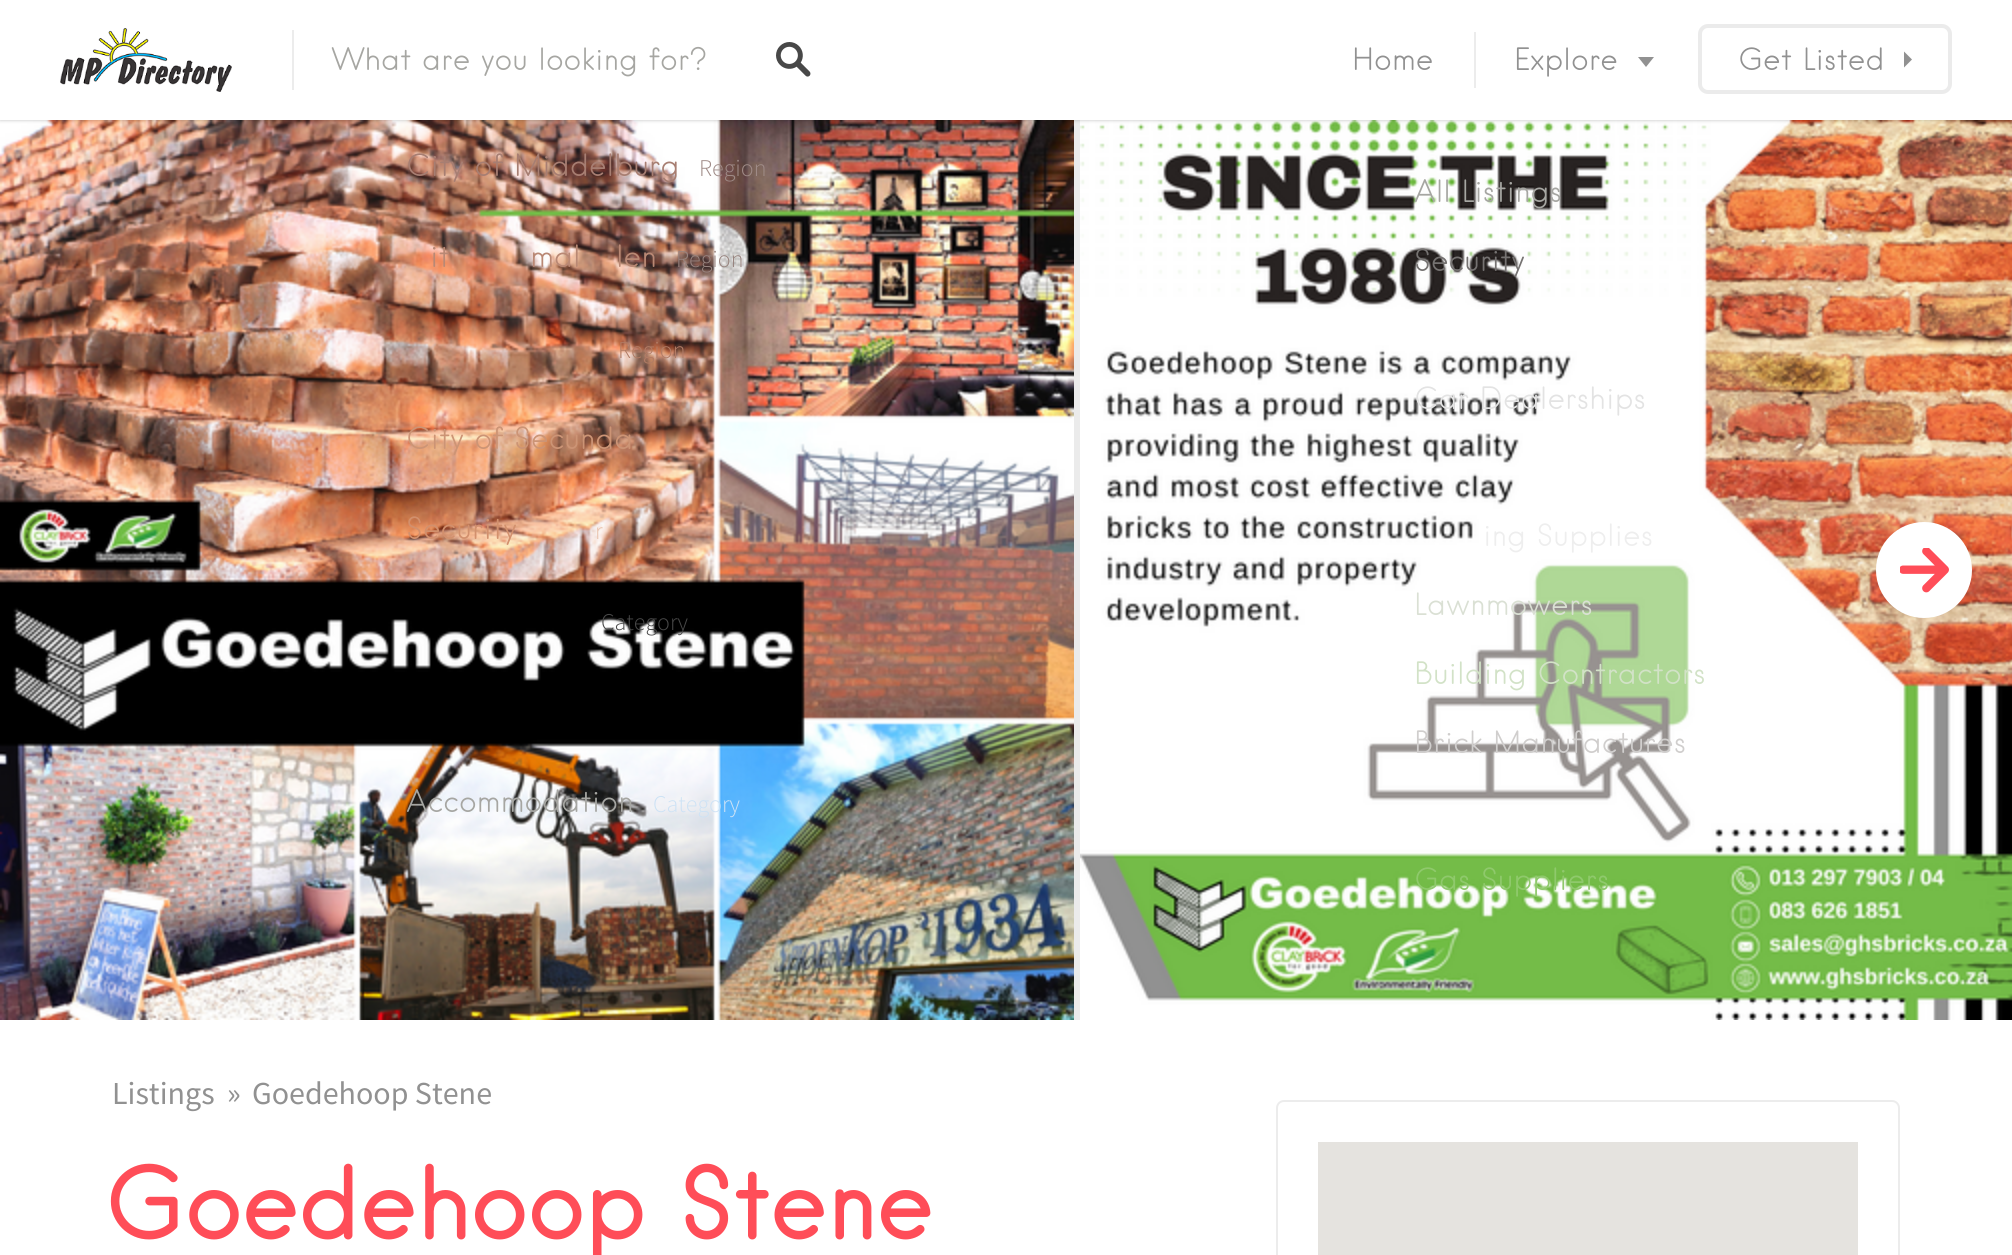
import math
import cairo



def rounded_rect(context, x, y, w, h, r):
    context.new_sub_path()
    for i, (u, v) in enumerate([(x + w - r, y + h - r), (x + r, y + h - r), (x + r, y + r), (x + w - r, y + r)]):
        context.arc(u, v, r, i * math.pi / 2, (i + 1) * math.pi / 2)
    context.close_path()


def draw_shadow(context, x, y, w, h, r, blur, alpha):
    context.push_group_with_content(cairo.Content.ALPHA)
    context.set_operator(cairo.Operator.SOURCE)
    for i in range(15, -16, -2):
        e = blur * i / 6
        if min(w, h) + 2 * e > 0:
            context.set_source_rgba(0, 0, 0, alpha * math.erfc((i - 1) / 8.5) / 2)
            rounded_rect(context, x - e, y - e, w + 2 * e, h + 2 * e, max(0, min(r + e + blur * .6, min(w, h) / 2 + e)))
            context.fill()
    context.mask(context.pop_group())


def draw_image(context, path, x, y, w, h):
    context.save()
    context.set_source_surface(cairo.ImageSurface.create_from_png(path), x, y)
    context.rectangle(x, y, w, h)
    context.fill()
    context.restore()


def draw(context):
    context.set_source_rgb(235 / 255, 235 / 255, 235 / 255)
    context.paint()
    draw_image(context, "images/3.png", 0, 120, 1074, 900)
    draw_image(context, "images/4.png", 1080, 120, 932, 900)
    context.set_source_rgb(0, 0, 0)
    draw_shadow(context, 0, 0, 2012, 120, 0, 2, 0.25)
    context.set_source_rgb(1, 1, 1)
    context.rectangle(0, 0, 2012, 120)
    context.fill()
    draw_image(context, "images/1.png", 60, 28, 172, 64)
    context.set_source_rgb(236 / 255, 236 / 255, 236 / 255)
    context.rectangle(292, 30, 2, 60)
    context.fill()
    draw_image(context, "images/2.png", 776, 42, 35, 35)
    context.rectangle(1474, 32, 2, 56)
    context.fill()
    context.set_source_rgb(145 / 255, 145 / 255, 145 / 255)
    context.new_path()
    context.move_to(1638, 57)
    context.line_to(1654, 57)
    context.line_to(1646, 67)
    context.close_path()
    context.fill()
    rounded_rect(context, 1700, 26, 250, 66, 8)
    context.set_source_rgb(235 / 255, 235 / 255, 235 / 255)
    context.set_line_width(4)
    context.stroke()
    context.set_source_rgb(145 / 255, 145 / 255, 145 / 255)
    context.new_path()
    context.move_to(1904, 67.5)
    context.line_to(1904, 51.5)
    context.line_to(1912, 59.5)
    context.close_path()
    context.fill()
    context.set_source_rgb(1, 1, 1)
    context.arc(1924, 570, 48, 0, 2 * math.pi)
    context.fill()
    draw_image(context, "images/5.png", 1900, 548, 49, 45)
    context.rectangle(0, 1020, 2012, 235)
    context.fill()
    rounded_rect(context, 1277, 1101, 622, 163, 7)
    context.set_source_rgb(236 / 255, 236 / 255, 236 / 255)
    context.set_line_width(2)
    context.stroke()
    context.set_source_rgb(229 / 255, 227 / 255, 223 / 255)
    context.rectangle(1318, 1142, 540, 113)
    context.fill()
    context.select_font_face("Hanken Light")
    context.set_font_size(29.9)
    context.set_source_rgb(166 / 255, 166 / 255, 162 / 255)
    context.move_to(332, 70)
    context.show_text("What are you looking for?")
    context.set_source_rgb(167 / 255, 126 / 255, 114 / 255)
    context.move_to(406, 176)
    context.show_text("City of Middelburg")
    context.select_font_face("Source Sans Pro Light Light")
    context.set_font_size(24)
    context.set_source_rgb(159 / 255, 139 / 255, 135 / 255)
    context.move_to(699, 176)
    context.show_text("Region")
    context.select_font_face("Hanken Light")
    context.set_font_size(29.9)
    context.set_source_rgb(185 / 255, 136 / 255, 116 / 255)
    context.move_to(430, 267)
    context.show_text("it")
    context.move_to(530, 267)
    context.show_text("mal")
    context.move_to(616, 267)
    context.show_text("len")
    context.select_font_face("Source Sans Pro Light Light")
    context.set_font_size(24)
    context.set_source_rgb(152 / 255, 132 / 255, 127 / 255)
    context.move_to(676, 267)
    context.show_text("Region")
    context.set_source_rgb(178 / 255, 124 / 255, 101 / 255)
    context.move_to(618, 358)
    context.show_text("Region")
    context.select_font_face("Hanken Light")
    context.set_font_size(29.9)
    context.set_source_rgb(204 / 255, 148 / 255, 117 / 255)
    context.move_to(406, 449)
    context.show_text("City of Secunda")
    context.set_source_rgb(210 / 255, 144 / 255, 109 / 255)
    context.move_to(406, 539)
    context.show_text("Security")
    context.select_font_face("Source Sans Pro Light Light")
    context.set_font_size(24)
    context.set_source_rgb(233 / 255, 194 / 255, 171 / 255)
    context.move_to(595, 539)
    context.show_text("r")
    context.set_source_rgb(73 / 255, 73 / 255, 73 / 255)
    context.move_to(601, 630)
    context.show_text("Category")
    context.select_font_face("Hanken Light")
    context.set_font_size(29.9)
    context.set_source_rgb(166 / 255, 166 / 255, 162 / 255)
    context.move_to(406, 812)
    context.show_text("Accommodation")
    context.select_font_face("Source Sans Pro Light Light")
    context.set_font_size(24)
    context.set_source_rgb(205 / 255, 226 / 255, 245 / 255)
    context.move_to(653, 812)
    context.show_text("Category")
    context.select_font_face("Hanken Light")
    context.set_font_size(29.9)
    context.set_source_rgb(145 / 255, 145 / 255, 145 / 255)
    context.move_to(1352, 70)
    context.show_text("Home")
    context.move_to(1514, 70)
    context.show_text("Explore")
    context.set_source_rgb(166 / 255, 166 / 255, 162 / 255)
    context.move_to(1414, 202)
    context.show_text("All Listings")
    context.set_source_rgb(117 / 255, 114 / 255, 113 / 255)
    context.move_to(1414, 271)
    context.show_text("Security")
    context.set_source_rgb(227 / 255, 227 / 255, 227 / 255)
    context.move_to(1414, 409)
    context.show_text("Car Dealerships")
    context.set_source_rgb(238 / 255, 238 / 255, 238 / 255)
    context.move_to(1483, 546)
    context.show_text("ing Supplies")
    context.set_source_rgb(218 / 255, 224 / 255, 212 / 255)
    context.move_to(1414, 615)
    context.show_text("Lawnmowers")
    context.set_source_rgb(210 / 255, 226 / 255, 199 / 255)
    context.move_to(1414, 684)
    context.show_text("Building Contractors")
    context.set_source_rgb(208 / 255, 206 / 255, 205 / 255)
    context.move_to(1414, 753)
    context.show_text("Brick Manufactures")
    context.set_source_rgb(143 / 255, 201 / 255, 108 / 255)
    context.move_to(1414, 890)
    context.show_text("Gas Suppliers")
    context.set_source_rgb(145 / 255, 145 / 255, 145 / 255)
    context.move_to(1738, 70)
    context.show_text("Get Listed")
    context.select_font_face("Source Sans Pro")
    context.set_font_size(32)
    context.move_to(112, 1104)
    context.show_text("Listings")
    context.move_to(227, 1104)
    context.show_text("»")
    context.move_to(252, 1104)
    context.show_text("Goedehoop Stene")
    context.select_font_face("Hanken")
    context.set_font_size(96)
    context.set_source_rgb(1, 77 / 255, 88 / 255)
    context.move_to(105, 1238)
    context.show_text("Goedehoop Stene")


surface = cairo.ImageSurface(cairo.Format.RGB24, 2012, 1255)
context = cairo.Context(surface)
options = cairo.FontOptions()
options.set_hint_metrics(cairo.HintMetrics.OFF)
options.set_hint_style(cairo.HintStyle.NONE)
context.set_font_options(options)
context.set_miter_limit(4)
draw(context)
surface.write_to_png("out.png")
